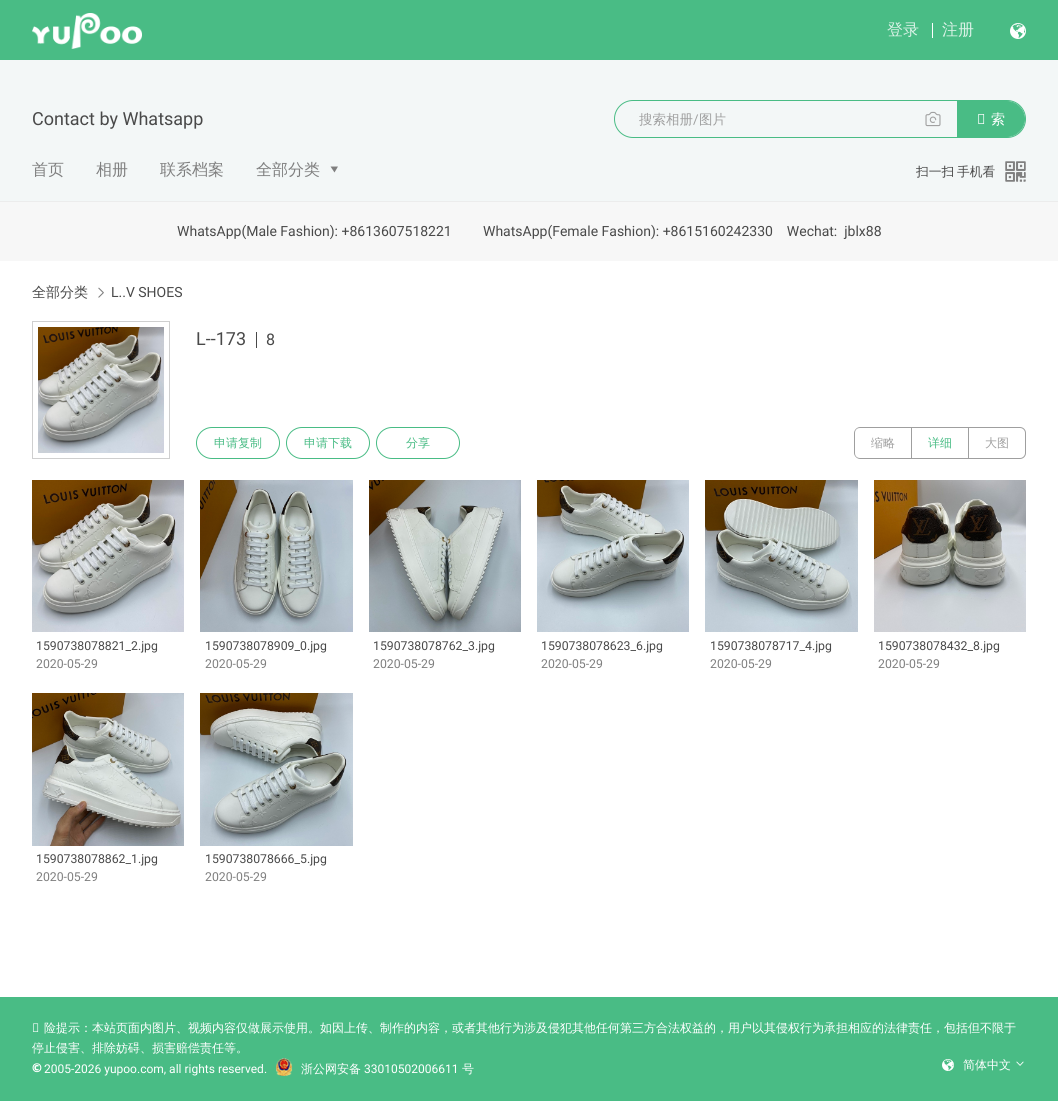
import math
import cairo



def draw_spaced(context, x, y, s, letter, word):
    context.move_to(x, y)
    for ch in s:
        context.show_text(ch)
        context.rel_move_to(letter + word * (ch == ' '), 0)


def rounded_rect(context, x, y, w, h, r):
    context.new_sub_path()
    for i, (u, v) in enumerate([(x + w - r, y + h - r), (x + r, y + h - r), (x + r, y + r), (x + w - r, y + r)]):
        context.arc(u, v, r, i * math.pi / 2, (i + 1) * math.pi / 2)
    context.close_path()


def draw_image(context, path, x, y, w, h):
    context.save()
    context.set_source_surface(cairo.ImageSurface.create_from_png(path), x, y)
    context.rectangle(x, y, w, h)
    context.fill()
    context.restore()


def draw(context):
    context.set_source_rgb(1, 1, 1)
    context.paint()
    context.set_source_rgb(73 / 255, 188 / 255, 133 / 255)
    context.rectangle(0, 0, 1058, 60)
    context.fill()
    draw_image(context, "images/1.png", 32, 13, 110, 36)
    context.set_source_rgb(1, 1, 1)
    context.rectangle(932, 23, 1, 15)
    context.fill()
    draw_image(context, "images/2.png", 1010, 23, 16, 16)
    context.set_source_rgb(243 / 255, 247 / 255, 247 / 255)
    context.rectangle(0, 60, 1058, 141)
    context.fill()
    rounded_rect(context, 614.5, 100.5, 411, 37, 18.5)
    context.set_source_rgb(73 / 255, 188 / 255, 133 / 255)
    context.set_line_width(1)
    context.stroke()
    draw_image(context, "images/3.png", 925, 111, 16, 16)
    context.new_path()
    context.move_to(957.5, 101.5)
    context.line_to(1007, 101.5)
    context.curve_to(1016.5, 101.5, 1024.5, 109.5, 1024.5, 119)
    context.curve_to(1024.5, 128.5, 1016.5, 136.5, 1007, 136.5)
    context.line_to(957.5, 136.5)
    context.close_path()
    context.fill_preserve()
    context.stroke()
    context.set_source_rgb(127 / 255, 127 / 255, 127 / 255)
    context.new_path()
    context.move_to(334.5, 172.5)
    context.line_to(330.5, 166.5)
    context.line_to(338, 166.5)
    context.close_path()
    context.fill()
    draw_image(context, "images/4.png", 1005, 161, 21, 21)
    context.set_source_rgb(247 / 255, 247 / 255, 247 / 255)
    context.rectangle(0, 202, 1058, 59)
    context.fill()
    context.set_source_rgb(236 / 255, 236 / 255, 236 / 255)
    context.rectangle(0, 201, 1058, 1)
    context.fill()
    draw_image(context, "images/5.png", 98, 287, 6, 11)
    context.rectangle(32.5, 321.5, 137, 137)
    context.set_source_rgb(207 / 255, 207 / 255, 207 / 255)
    context.stroke()
    draw_image(context, "images/6.png", 38, 327, 126, 126)
    context.set_source_rgb(73 / 255, 73 / 255, 73 / 255)
    context.rectangle(256, 332, 1, 16)
    context.fill()
    rounded_rect(context, 196.5, 427.5, 83, 31, 15.5)
    context.set_source_rgb(73 / 255, 188 / 255, 133 / 255)
    context.stroke()
    rounded_rect(context, 286.5, 427.5, 83, 31, 15.5)
    context.stroke()
    rounded_rect(context, 376.5, 427.5, 83, 31, 15.5)
    context.stroke()
    context.set_source_rgb(159 / 255, 159 / 255, 159 / 255)
    context.set_fill_rule(cairo.FillRule.EVEN_ODD)
    context.new_path()
    context.move_to(860, 427)
    context.line_to(911, 427)
    context.line_to(911, 459)
    context.line_to(860, 459)
    context.curve_to(857, 459, 854, 456, 854, 453)
    context.line_to(854, 433)
    context.curve_to(854, 430, 857, 427, 860, 427)
    context.close_path()
    context.move_to(860, 428)
    context.line_to(911, 428)
    context.line_to(911, 458)
    context.line_to(860, 458)
    context.curve_to(857, 458, 855, 456, 855, 453)
    context.line_to(855, 433)
    context.curve_to(855, 430, 857, 428, 860, 428)
    context.close_path()
    context.fill()
    context.rectangle(911, 427, 57, 1)
    context.fill()
    context.rectangle(911, 458, 57, 1)
    context.fill()
    context.rectangle(911, 427, 1, 32)
    context.fill()
    context.new_path()
    context.move_to(968.5, 427.5)
    context.line_to(1020, 427.5)
    context.curve_to(1023, 427.5, 1025.5, 430, 1025.5, 433)
    context.line_to(1025.5, 453)
    context.curve_to(1025.5, 456, 1023, 458.5, 1020, 458.5)
    context.line_to(968.5, 458.5)
    context.close_path()
    context.stroke()
    draw_image(context, "images/7.png", 32, 480, 152, 152)
    draw_image(context, "images/8.png", 200, 480, 153, 152)
    draw_image(context, "images/9.png", 369, 480, 152, 152)
    draw_image(context, "images/10.png", 537, 480, 152, 152)
    draw_image(context, "images/11.png", 705, 480, 153, 152)
    draw_image(context, "images/12.png", 874, 480, 152, 152)
    draw_image(context, "images/13.png", 32, 693, 152, 153)
    draw_image(context, "images/14.png", 200, 693, 153, 153)
    context.set_source_rgb(73 / 255, 188 / 255, 133 / 255)
    context.rectangle(0, 997, 1058, 104)
    context.fill()
    draw_image(context, "images/15.png", 276, 1058, 17, 18)
    draw_image(context, "images/16.png", 942, 1059, 12, 12)
    draw_image(context, "images/17.png", 1016, 1061, 8, 5)
    context.select_font_face("WenQuanYi Zen Hei Medium")
    context.set_font_size(16)
    context.set_source_rgb(219 / 255, 242 / 255, 231 / 255)
    context.move_to(887, 35)
    context.show_text("登录")
    context.move_to(942, 35)
    context.show_text("注册")
    context.select_font_face("Roboto")
    context.set_font_size(18)
    context.set_source_rgb(73 / 255, 73 / 255, 73 / 255)
    context.move_to(32, 125)
    context.show_text("Contact by Whatsapp")
    context.select_font_face("WenQuanYi Zen Hei Medium")
    context.set_font_size(13.5)
    context.set_source_rgb(159 / 255, 159 / 255, 159 / 255)
    context.move_to(639, 124)
    context.show_text("搜索相册")
    context.select_font_face("Roboto")
    context.move_to(693, 124)
    context.show_text("/")
    context.select_font_face("WenQuanYi Zen Hei Medium")
    context.move_to(699, 124)
    context.show_text("图片")
    context.select_font_face("Noto Sans")
    context.set_font_size(14)
    context.set_source_rgb(1, 1, 1)
    context.move_to(977, 124)
    context.show_text("搜")
    context.select_font_face("WenQuanYi Zen Hei Medium")
    context.move_to(991, 124)
    context.show_text("索")
    context.set_font_size(16)
    context.set_source_rgb(127 / 255, 127 / 255, 127 / 255)
    context.move_to(32, 175)
    context.show_text("首页")
    context.move_to(96, 175)
    context.show_text("相册")
    context.move_to(160, 175)
    context.show_text("联系档案")
    context.move_to(256, 175)
    context.show_text("全部分类")
    context.set_font_size(12.75)
    context.set_source_rgb(73 / 255, 73 / 255, 73 / 255)
    draw_spaced(context, 916, 176, "扫一扫 手机看", 0, -1)
    context.select_font_face("Roboto")
    context.set_font_size(14)
    context.move_to(177, 236)
    context.show_text("WhatsApp(Male Fashion): +8613607518221         WhatsApp(Female Fashion): +8615160242330    Wechat:  jblx88")
    context.select_font_face("WenQuanYi Zen Hei Medium")
    context.move_to(32, 297)
    context.show_text("全部分类")
    context.select_font_face("Roboto")
    context.move_to(111, 297)
    context.show_text("L..V SHOES")
    context.set_font_size(18)
    context.move_to(196, 345)
    context.show_text("L--173")
    context.set_font_size(16)
    context.move_to(266, 345)
    context.show_text("8")
    context.select_font_face("WenQuanYi Zen Hei Medium")
    context.set_font_size(12)
    context.set_source_rgb(73 / 255, 188 / 255, 133 / 255)
    context.move_to(214, 447)
    context.show_text("申请复制")
    context.move_to(304, 447)
    context.show_text("申请下载")
    context.move_to(406, 447)
    context.show_text("分享")
    context.set_source_rgb(159 / 255, 159 / 255, 159 / 255)
    context.move_to(871, 447)
    context.show_text("缩略")
    context.set_source_rgb(73 / 255, 188 / 255, 133 / 255)
    context.move_to(928, 447)
    context.show_text("详细")
    context.set_source_rgb(159 / 255, 159 / 255, 159 / 255)
    context.move_to(985, 447)
    context.show_text("大图")
    context.select_font_face("Roboto")
    context.set_font_size(12.25)
    context.set_source_rgb(73 / 255, 73 / 255, 73 / 255)
    context.move_to(36, 650)
    context.show_text("1590738078821_2.jpg")
    context.set_source_rgb(127 / 255, 127 / 255, 127 / 255)
    context.move_to(36, 668)
    context.show_text("2020-05-29")
    context.set_source_rgb(73 / 255, 73 / 255, 73 / 255)
    context.move_to(205, 650)
    context.show_text("1590738078909_0.jpg")
    context.set_source_rgb(127 / 255, 127 / 255, 127 / 255)
    context.move_to(205, 668)
    context.show_text("2020-05-29")
    context.set_source_rgb(73 / 255, 73 / 255, 73 / 255)
    context.move_to(373, 650)
    context.show_text("1590738078762_3.jpg")
    context.set_source_rgb(127 / 255, 127 / 255, 127 / 255)
    context.move_to(373, 668)
    context.show_text("2020-05-29")
    context.set_source_rgb(73 / 255, 73 / 255, 73 / 255)
    context.move_to(541, 650)
    context.show_text("1590738078623_6.jpg")
    context.set_source_rgb(127 / 255, 127 / 255, 127 / 255)
    context.move_to(541, 668)
    context.show_text("2020-05-29")
    context.set_source_rgb(73 / 255, 73 / 255, 73 / 255)
    context.move_to(710, 650)
    context.show_text("1590738078717_4.jpg")
    context.set_source_rgb(127 / 255, 127 / 255, 127 / 255)
    context.move_to(710, 668)
    context.show_text("2020-05-29")
    context.set_source_rgb(73 / 255, 73 / 255, 73 / 255)
    context.move_to(878, 650)
    context.show_text("1590738078432_8.jpg")
    context.set_source_rgb(127 / 255, 127 / 255, 127 / 255)
    context.move_to(878, 668)
    context.show_text("2020-05-29")
    context.set_source_rgb(73 / 255, 73 / 255, 73 / 255)
    context.move_to(36, 863)
    context.show_text("1590738078862_1.jpg")
    context.set_source_rgb(127 / 255, 127 / 255, 127 / 255)
    context.move_to(36, 881)
    context.show_text("2020-05-29")
    context.set_source_rgb(73 / 255, 73 / 255, 73 / 255)
    context.move_to(205, 863)
    context.show_text("1590738078666_5.jpg")
    context.set_source_rgb(127 / 255, 127 / 255, 127 / 255)
    context.move_to(205, 881)
    context.show_text("2020-05-29")
    context.select_font_face("Noto Sans")
    context.set_font_size(12)
    context.set_source_rgb(1, 1, 1)
    context.move_to(32, 1032)
    context.show_text("风")
    context.select_font_face("WenQuanYi Zen Hei Medium")
    context.move_to(44, 1032)
    context.show_text("险提示：本站页面内图片、视频内容仅做展示使用。如因上传、制作的内容，或者其他行为涉及侵犯其他任何第三方合法权益的，用户以其侵权行为承担相应的法律责任，包括但不限于")
    context.move_to(32, 1052)
    context.show_text("停止侵害、排除妨碍、损害赔偿责任等。")
    context.select_font_face("Noto Sans Black")
    context.move_to(32, 1072)
    context.show_text("©")
    context.select_font_face("Roboto")
    context.move_to(44, 1073)
    context.show_text("2005-2026 yupoo.com, all rights reserved.")
    context.select_font_face("WenQuanYi Zen Hei Medium")
    context.move_to(301, 1073)
    context.show_text("浙公网安备")
    context.select_font_face("Roboto")
    context.move_to(364, 1073)
    context.show_text("33010502006611")
    context.select_font_face("WenQuanYi Zen Hei Medium")
    context.move_to(462, 1073)
    context.show_text("号")
    context.move_to(963, 1069)
    context.show_text("简体中文")


surface = cairo.ImageSurface(cairo.Format.RGB24, 1058, 1101)
context = cairo.Context(surface)
options = cairo.FontOptions()
options.set_hint_metrics(cairo.HintMetrics.OFF)
options.set_hint_style(cairo.HintStyle.NONE)
context.set_font_options(options)
context.set_miter_limit(4)
draw(context)
surface.write_to_png("out.png")
